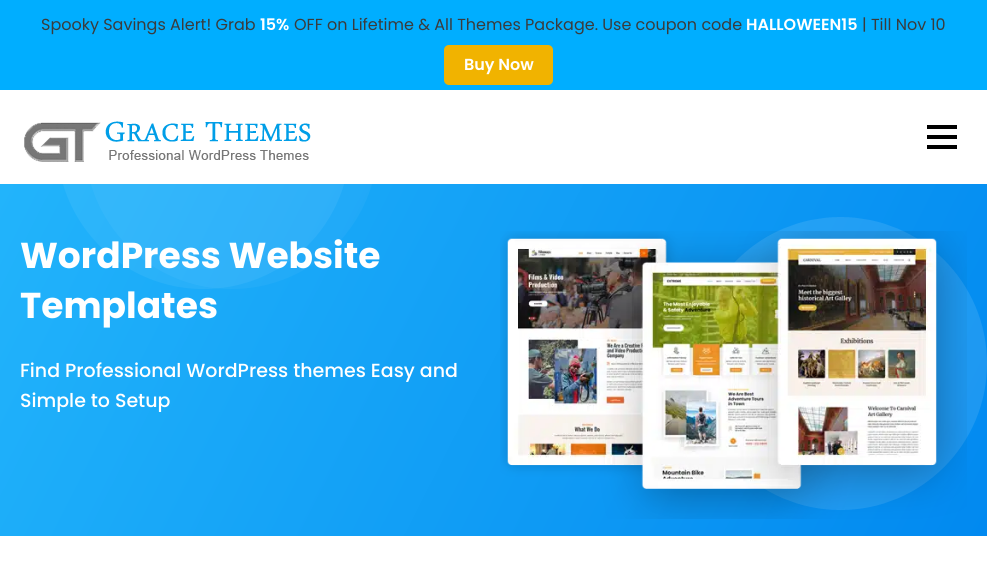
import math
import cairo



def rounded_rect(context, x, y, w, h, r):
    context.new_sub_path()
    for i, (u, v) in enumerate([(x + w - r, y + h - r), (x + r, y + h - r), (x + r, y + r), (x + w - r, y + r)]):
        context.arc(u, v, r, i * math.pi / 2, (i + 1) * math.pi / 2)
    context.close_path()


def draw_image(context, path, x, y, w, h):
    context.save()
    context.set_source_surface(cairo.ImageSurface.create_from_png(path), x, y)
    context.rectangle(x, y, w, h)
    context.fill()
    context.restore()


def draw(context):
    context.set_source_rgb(1, 1, 1)
    context.paint()
    context.set_source_rgb(0, 174 / 255, 1)
    context.rectangle(0, 0, 987, 90)
    context.fill()
    context.set_source_rgb(241 / 255, 179 / 255, 0)
    rounded_rect(context, 444, 45, 109, 40, 5)
    context.fill()
    draw_image(context, "images/1.png", 24, 121, 287, 41)
    context.set_source_rgb(0, 0, 0)
    context.rectangle(927, 135, 30, 4)
    context.fill()
    context.rectangle(927, 125, 30, 4)
    context.fill()
    context.rectangle(927, 145, 30, 4)
    context.fill()
    gradient = cairo.LinearGradient(31, 124, 956, 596)
    gradient.add_color_stop_rgba(0, 105 / 255, 233 / 255, 203 / 255, 1)
    gradient.add_color_stop_rgba(0, 34 / 255, 180 / 255, 251 / 255, 1)
    gradient.add_color_stop_rgba(1, 1 / 255, 137 / 255, 240 / 255, 1)
    context.set_source(gradient)
    context.rectangle(0, 184, 987, 352)
    context.fill()
    draw_image(context, "images/2.png", 63, 184, 924, 326)
    draw_image(context, "images/3.png", 500, 231, 467, 288)
    context.select_font_face("Poppins")
    context.set_font_size(16)
    context.set_source_rgb(59 / 255, 59 / 255, 59 / 255)
    context.move_to(41, 30)
    context.show_text("Spooky Savings Alert! Grab")
    context.select_font_face("Poppins SemiBold")
    context.set_source_rgb(1, 1, 1)
    context.move_to(260, 30)
    context.show_text("15%")
    context.select_font_face("Poppins")
    context.set_source_rgb(59 / 255, 59 / 255, 59 / 255)
    context.move_to(294, 30)
    context.show_text("OFF on Lifetime & All Themes Package. Use coupon code")
    context.select_font_face("Poppins SemiBold")
    context.set_source_rgb(1, 1, 1)
    context.move_to(746, 30)
    context.show_text("HALLOWEEN15")
    context.select_font_face("Poppins")
    context.set_source_rgb(59 / 255, 59 / 255, 59 / 255)
    context.move_to(862, 30)
    context.show_text("| Till Nov 10")
    context.select_font_face("Poppins SemiBold")
    context.set_source_rgb(1, 1, 1)
    context.move_to(464, 70)
    context.show_text("Buy Now")
    context.select_font_face("Poppins", cairo.FontSlant.NORMAL, cairo.FontWeight.BOLD)
    context.set_font_size(36)
    context.move_to(20, 268)
    context.show_text("WordPress Website")
    context.move_to(20, 318)
    context.show_text("Templates")
    context.select_font_face("Poppins Medium")
    context.set_font_size(19)
    context.move_to(20, 377)
    context.show_text("Find Professional WordPress themes Easy and")
    context.move_to(20, 407)
    context.show_text("Simple to Setup")


surface = cairo.ImageSurface(cairo.Format.RGB24, 987, 574)
context = cairo.Context(surface)
options = cairo.FontOptions()
options.set_hint_metrics(cairo.HintMetrics.OFF)
options.set_hint_style(cairo.HintStyle.NONE)
context.set_font_options(options)
context.set_miter_limit(4)
draw(context)
surface.write_to_png("out.png")
